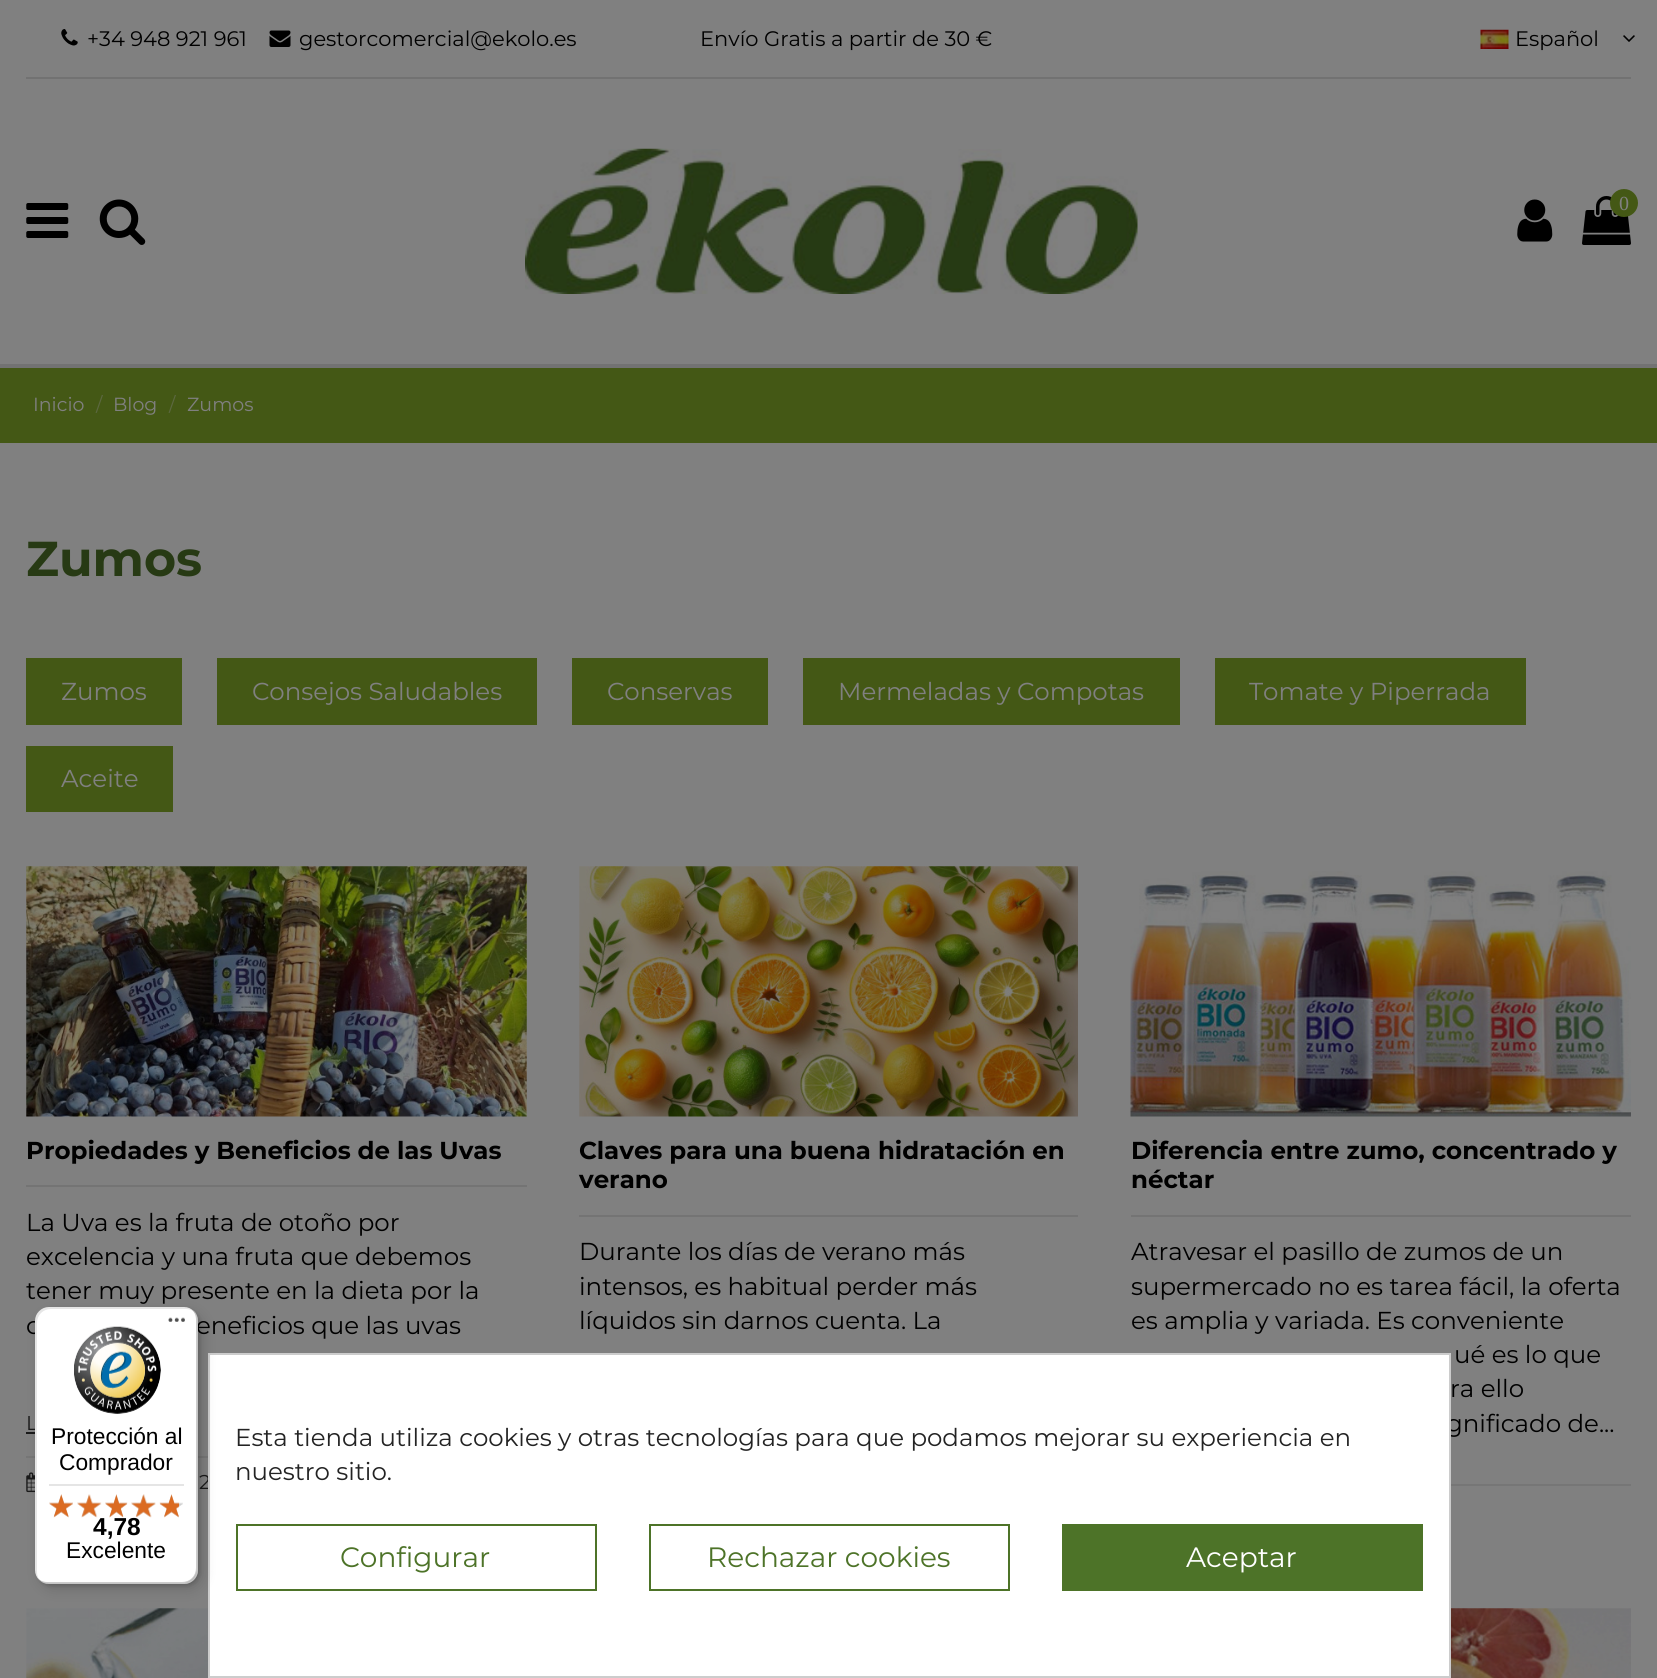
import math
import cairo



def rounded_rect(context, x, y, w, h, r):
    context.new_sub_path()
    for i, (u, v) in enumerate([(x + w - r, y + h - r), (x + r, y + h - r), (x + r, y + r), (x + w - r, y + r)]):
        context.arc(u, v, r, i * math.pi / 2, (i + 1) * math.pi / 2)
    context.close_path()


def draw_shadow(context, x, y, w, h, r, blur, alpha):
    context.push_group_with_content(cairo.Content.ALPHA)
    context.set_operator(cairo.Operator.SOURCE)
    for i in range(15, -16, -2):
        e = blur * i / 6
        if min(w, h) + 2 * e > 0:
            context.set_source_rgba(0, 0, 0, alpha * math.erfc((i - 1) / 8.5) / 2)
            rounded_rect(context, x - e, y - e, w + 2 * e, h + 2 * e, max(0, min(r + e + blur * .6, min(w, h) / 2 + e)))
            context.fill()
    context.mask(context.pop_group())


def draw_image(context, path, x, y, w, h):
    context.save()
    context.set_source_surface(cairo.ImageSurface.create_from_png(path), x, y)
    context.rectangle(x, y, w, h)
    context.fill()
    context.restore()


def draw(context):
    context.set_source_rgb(128 / 255, 128 / 255, 128 / 255)
    context.paint()
    context.set_source_rgb(114 / 255, 114 / 255, 114 / 255)
    context.rectangle(0, 364, 1657, 4)
    context.fill()
    context.rectangle(26, 77, 1605, 2)
    context.fill()
    draw_image(context, "images/1.png", 61, 29, 17, 17)
    draw_image(context, "images/2.png", 269, 30, 22, 17)
    draw_image(context, "images/3.png", 1480, 29, 29, 20)
    draw_image(context, "images/4.png", 1623, 35, 12, 7)
    draw_image(context, "images/5.png", 26, 203, 43, 35)
    draw_image(context, "images/6.png", 99, 199, 47, 46)
    draw_image(context, "images/7.png", 525, 148, 613, 146)
    draw_image(context, "images/8.png", 1517, 199, 36, 43)
    draw_image(context, "images/9.png", 1582, 196, 49, 49)
    context.set_source_rgb(68 / 255, 88 / 255, 21 / 255)
    context.arc(1624, 203, 14, 0, 2 * math.pi)
    context.fill()
    context.rectangle(0, 368, 1657, 75)
    context.fill()
    context.rectangle(26, 658, 156, 67)
    context.fill()
    context.rectangle(217, 658, 320, 67)
    context.fill()
    context.rectangle(572, 658, 196, 67)
    context.fill()
    context.rectangle(803, 658, 377, 67)
    context.fill()
    context.rectangle(1215, 658, 311, 67)
    context.fill()
    context.rectangle(26, 746, 147, 66)
    context.fill()
    draw_image(context, "images/10.png", 26, 866, 501, 251)
    context.set_source_rgb(116 / 255, 116 / 255, 116 / 255)
    context.rectangle(26, 1185, 501, 2)
    context.fill()
    context.set_source_rgb(26 / 255, 26 / 255, 26 / 255)
    context.rectangle(26, 1432, 9, 2)
    context.fill()
    context.set_source_rgb(118 / 255, 118 / 255, 118 / 255)
    context.rectangle(26, 1456, 182, 2)
    context.fill()
    draw_image(context, "images/11.png", 26, 1472, 9, 21)
    draw_image(context, "images/12.png", 579, 866, 499, 251)
    context.set_source_rgb(116 / 255, 116 / 255, 116 / 255)
    context.rectangle(579, 1215, 499, 2)
    context.fill()
    draw_image(context, "images/13.png", 1130, 871, 501, 246)
    context.rectangle(1131, 1215, 500, 2)
    context.fill()
    context.set_source_rgb(118 / 255, 118 / 255, 118 / 255)
    context.rectangle(1451, 1484, 180, 2)
    context.fill()
    draw_image(context, "images/14.png", 26, 1608, 182, 70)
    draw_image(context, "images/15.png", 1451, 1608, 180, 70)
    context.set_source_rgb(0, 0, 0)
    draw_shadow(context, 37, 1309, 163, 277, 14, 2, 0.15)
    context.select_font_face("Montserrat")
    context.set_font_size(21)
    context.set_source_rgb(0, 0, 0)
    context.move_to(87, 46)
    context.show_text("+34 948 921 961")
    context.move_to(299, 46)
    context.show_text("gestorcomercial@ekolo.es")
    context.move_to(700, 46)
    context.show_text("Envío Gratis a partir de 30 €")
    context.move_to(1515, 46)
    context.show_text("Español")
    context.select_font_face("Liberation Serif")
    context.set_font_size(20)
    context.set_source_rgb(128 / 255, 128 / 255, 128 / 255)
    context.move_to(1619, 210)
    context.show_text("0")
    context.select_font_face("Montserrat")
    context.set_font_size(19)
    context.move_to(33, 411)
    context.show_text("Inicio")
    context.set_source_rgb(92 / 255, 104 / 255, 64 / 255)
    context.move_to(96, 411)
    context.show_text("/")
    context.set_source_rgb(128 / 255, 128 / 255, 128 / 255)
    context.move_to(113, 411)
    context.show_text("Blog")
    context.set_source_rgb(92 / 255, 104 / 255, 64 / 255)
    context.move_to(169, 411)
    context.show_text("/")
    context.set_source_rgb(128 / 255, 128 / 255, 128 / 255)
    context.move_to(187, 411)
    context.show_text("Zumos")
    context.select_font_face("Montserrat", cairo.FontSlant.NORMAL, cairo.FontWeight.BOLD)
    context.set_font_size(49)
    context.set_source_rgb(39 / 255, 58 / 255, 20 / 255)
    context.move_to(26, 576)
    context.show_text("Zumos")
    context.select_font_face("Montserrat")
    context.set_font_size(24.5)
    context.set_source_rgb(128 / 255, 128 / 255, 128 / 255)
    context.move_to(61, 700)
    context.show_text("Zumos")
    context.move_to(252, 700)
    context.show_text("Consejos Saludables")
    context.move_to(607, 700)
    context.show_text("Conservas")
    context.move_to(838, 700)
    context.show_text("Mermeladas y Compotas")
    context.move_to(1249, 700)
    context.show_text("Tomate y Piperrada")
    context.move_to(61, 787)
    context.show_text("Aceite")
    context.select_font_face("Montserrat", cairo.FontSlant.NORMAL, cairo.FontWeight.BOLD)
    context.set_source_rgb(0, 0, 0)
    context.move_to(26, 1159)
    context.show_text("Propiedades y Beneficios de las Uvas")
    context.select_font_face("Montserrat")
    context.move_to(26, 1231)
    context.show_text("La Uva es la fruta de otoño por")
    context.move_to(26, 1265)
    context.show_text("excelencia y una fruta que debemos")
    context.move_to(26, 1299)
    context.show_text("tener muy presente en la dieta por la")
    context.move_to(26, 1334)
    context.show_text("c")
    context.move_to(196, 1334)
    context.show_text("eneficios que las uvas")
    context.set_font_size(20)
    context.set_source_rgb(26 / 255, 26 / 255, 26 / 255)
    context.move_to(26, 1430)
    context.show_text("L")
    context.move_to(199, 1489)
    context.show_text("2")
    context.select_font_face("Montserrat", cairo.FontSlant.NORMAL, cairo.FontWeight.BOLD)
    context.set_font_size(24.5)
    context.set_source_rgb(0, 0, 0)
    context.move_to(579, 1159)
    context.show_text("Claves para una buena hidratación en")
    context.move_to(579, 1188)
    context.show_text("verano")
    context.select_font_face("Montserrat")
    context.move_to(579, 1260)
    context.show_text("Durante los días de verano más")
    context.move_to(579, 1295)
    context.show_text("intensos, es habitual perder más")
    context.move_to(579, 1329)
    context.show_text("líquidos sin darnos cuenta. La")
    context.select_font_face("Montserrat", cairo.FontSlant.NORMAL, cairo.FontWeight.BOLD)
    context.move_to(1131, 1159)
    context.show_text("Diferencia entre zumo, concentrado y")
    context.move_to(1131, 1188)
    context.show_text("néctar")
    context.select_font_face("Montserrat")
    context.move_to(1131, 1260)
    context.show_text("Atravesar el pasillo de zumos de un")
    context.move_to(1131, 1295)
    context.show_text("supermercado no es tarea fácil, la oferta")
    context.move_to(1131, 1329)
    context.show_text("es amplia y variada. Es conveniente")
    context.move_to(1454, 1363)
    context.show_text("ué es lo que")
    context.move_to(1450, 1397)
    context.show_text("ra ello")
    context.move_to(1446, 1432)
    context.show_text("gnificado de...")
    context.set_source_rgb(1, 1, 1)
    context.rectangle(209, 1354, 1241, 323)
    context.fill_preserve()
    context.set_source_rgb(204 / 255, 204 / 255, 204 / 255)
    context.stroke()
    context.set_source_rgb(0, 0, 0)
    draw_shadow(context, 40, 1313, 163, 276, 14, 7, 0.15)
    context.set_source_rgb(1, 1, 1)
    rounded_rect(context, 35, 1307, 163, 277, 14)
    context.fill()
    context.set_source_rgba(0, 0, 0, 0.1)
    context.new_path()
    context.move_to(51, 1309)
    context.line_to(186, 1309)
    context.curve_to(189, 1309, 193, 1310, 195, 1313)
    context.curve_to(193, 1309, 189, 1307, 184, 1307)
    context.line_to(49, 1307)
    context.curve_to(41, 1307, 35, 1313, 35, 1321)
    context.line_to(35, 1570)
    context.curve_to(35, 1575, 37, 1579, 41, 1581)
    context.curve_to(38, 1579, 37, 1575, 37, 1572)
    context.line_to(37, 1323)
    context.curve_to(37, 1315, 43, 1309, 51, 1309)
    context.close_path()
    context.fill()
    context.set_source_rgba(0, 0, 0, 0.2)
    context.new_path()
    context.move_to(38, 1578)
    context.curve_to(40, 1582, 44, 1584, 49, 1584)
    context.line_to(184, 1584)
    context.curve_to(192, 1584, 198, 1578, 198, 1570)
    context.line_to(198, 1321)
    context.curve_to(198, 1315, 195, 1311, 190, 1308)
    context.curve_to(194, 1311, 196, 1315, 196, 1320)
    context.line_to(196, 1568)
    context.curve_to(196, 1576, 190, 1582, 182, 1582)
    context.line_to(47, 1582)
    context.curve_to(44, 1582, 40, 1581, 38, 1578)
    context.close_path()
    context.fill()
    context.set_source_rgba(50 / 255, 50 / 255, 50 / 255, 0.2)
    context.new_path()
    context.move_to(38, 1578)
    context.curve_to(40, 1582, 44, 1584, 49, 1584)
    context.line_to(184, 1584)
    context.curve_to(192, 1584, 198, 1578, 198, 1570)
    context.line_to(198, 1321)
    context.curve_to(198, 1316, 196, 1312, 192, 1310)
    context.curve_to(195, 1312, 197, 1316, 197, 1320)
    context.line_to(197, 1569)
    context.curve_to(197, 1576, 190, 1583, 183, 1583)
    context.line_to(48, 1583)
    context.curve_to(44, 1583, 40, 1581, 38, 1578)
    context.close_path()
    context.fill()
    context.set_source_rgba(1, 1, 1, 0.3)
    context.new_path()
    context.move_to(40, 1580)
    context.curve_to(42, 1583, 45, 1584, 49, 1584)
    context.line_to(184, 1584)
    context.curve_to(192, 1584, 198, 1578, 198, 1570)
    context.line_to(198, 1321)
    context.curve_to(198, 1316, 196, 1312, 193, 1310)
    context.curve_to(195, 1313, 197, 1316, 197, 1320)
    context.line_to(197, 1569)
    context.curve_to(197, 1577, 191, 1583, 183, 1583)
    context.line_to(48, 1583)
    context.curve_to(45, 1583, 42, 1582, 40, 1580)
    context.close_path()
    context.fill()
    draw_image(context, "images/16.png", 168, 1317, 17, 5)
    draw_image(context, "images/22.png", 160, 1494, 23, 23)
    draw_image(context, "images/27.png", 159, 1494, 20, 24)
    draw_image(context, "images/21.png", 131, 1494, 25, 23)
    context.select_font_face("Liberation Sans", cairo.FontSlant.NORMAL, cairo.FontWeight.BOLD)
    context.set_source_rgb(0, 0, 0)
    context.move_to(93, 1535)
    context.show_text("4,78")
    draw_image(context, "images/26.png", 131, 1494, 25, 24)
    draw_image(context, "images/20.png", 105, 1494, 22, 23)
    draw_image(context, "images/25.png", 105, 1494, 23, 24)
    draw_image(context, "images/19.png", 77, 1494, 24, 23)
    draw_image(context, "images/24.png", 77, 1494, 25, 24)
    draw_image(context, "images/18.png", 49, 1494, 24, 23)
    draw_image(context, "images/23.png", 49, 1494, 24, 24)
    context.select_font_face("Liberation Sans")
    context.set_font_size(22.75)
    context.move_to(66, 1558)
    context.show_text("Excelente")
    context.move_to(59, 1470)
    context.show_text("Comprador")
    context.move_to(51, 1444)
    context.show_text("Protección al")
    draw_image(context, "images/17.png", 74, 1326, 87, 88)
    context.set_source_rgb(229 / 255, 229 / 255, 229 / 255)
    context.rectangle(49, 1484, 135, 2)
    context.fill()
    context.select_font_face("Montserrat")
    context.set_font_size(24.5)
    context.set_source_rgb(35 / 255, 35 / 255, 35 / 255)
    context.move_to(235, 1446)
    context.show_text("Esta tienda utiliza cookies y otras tecnologías para que podamos mejorar su experiencia en")
    context.move_to(235, 1480)
    context.show_text("nuestro sitio.")
    context.rectangle(237, 1525, 359, 65)
    context.set_source_rgb(77 / 255, 115 / 255, 40 / 255)
    context.stroke()
    context.set_font_size(28)
    context.move_to(340, 1567)
    context.show_text("Configurar")
    context.rectangle(650, 1525, 359, 65)
    context.stroke()
    context.move_to(707, 1567)
    context.show_text("Rechazar cookies")
    context.rectangle(1062, 1524, 361, 67)
    context.fill()
    context.set_source_rgb(1, 1, 1)
    context.move_to(1186, 1567)
    context.show_text("Aceptar")


surface = cairo.ImageSurface(cairo.Format.RGB24, 1657, 1678)
context = cairo.Context(surface)
options = cairo.FontOptions()
options.set_hint_metrics(cairo.HintMetrics.OFF)
options.set_hint_style(cairo.HintStyle.NONE)
context.set_font_options(options)
context.set_miter_limit(4)
draw(context)
surface.write_to_png("out.png")
